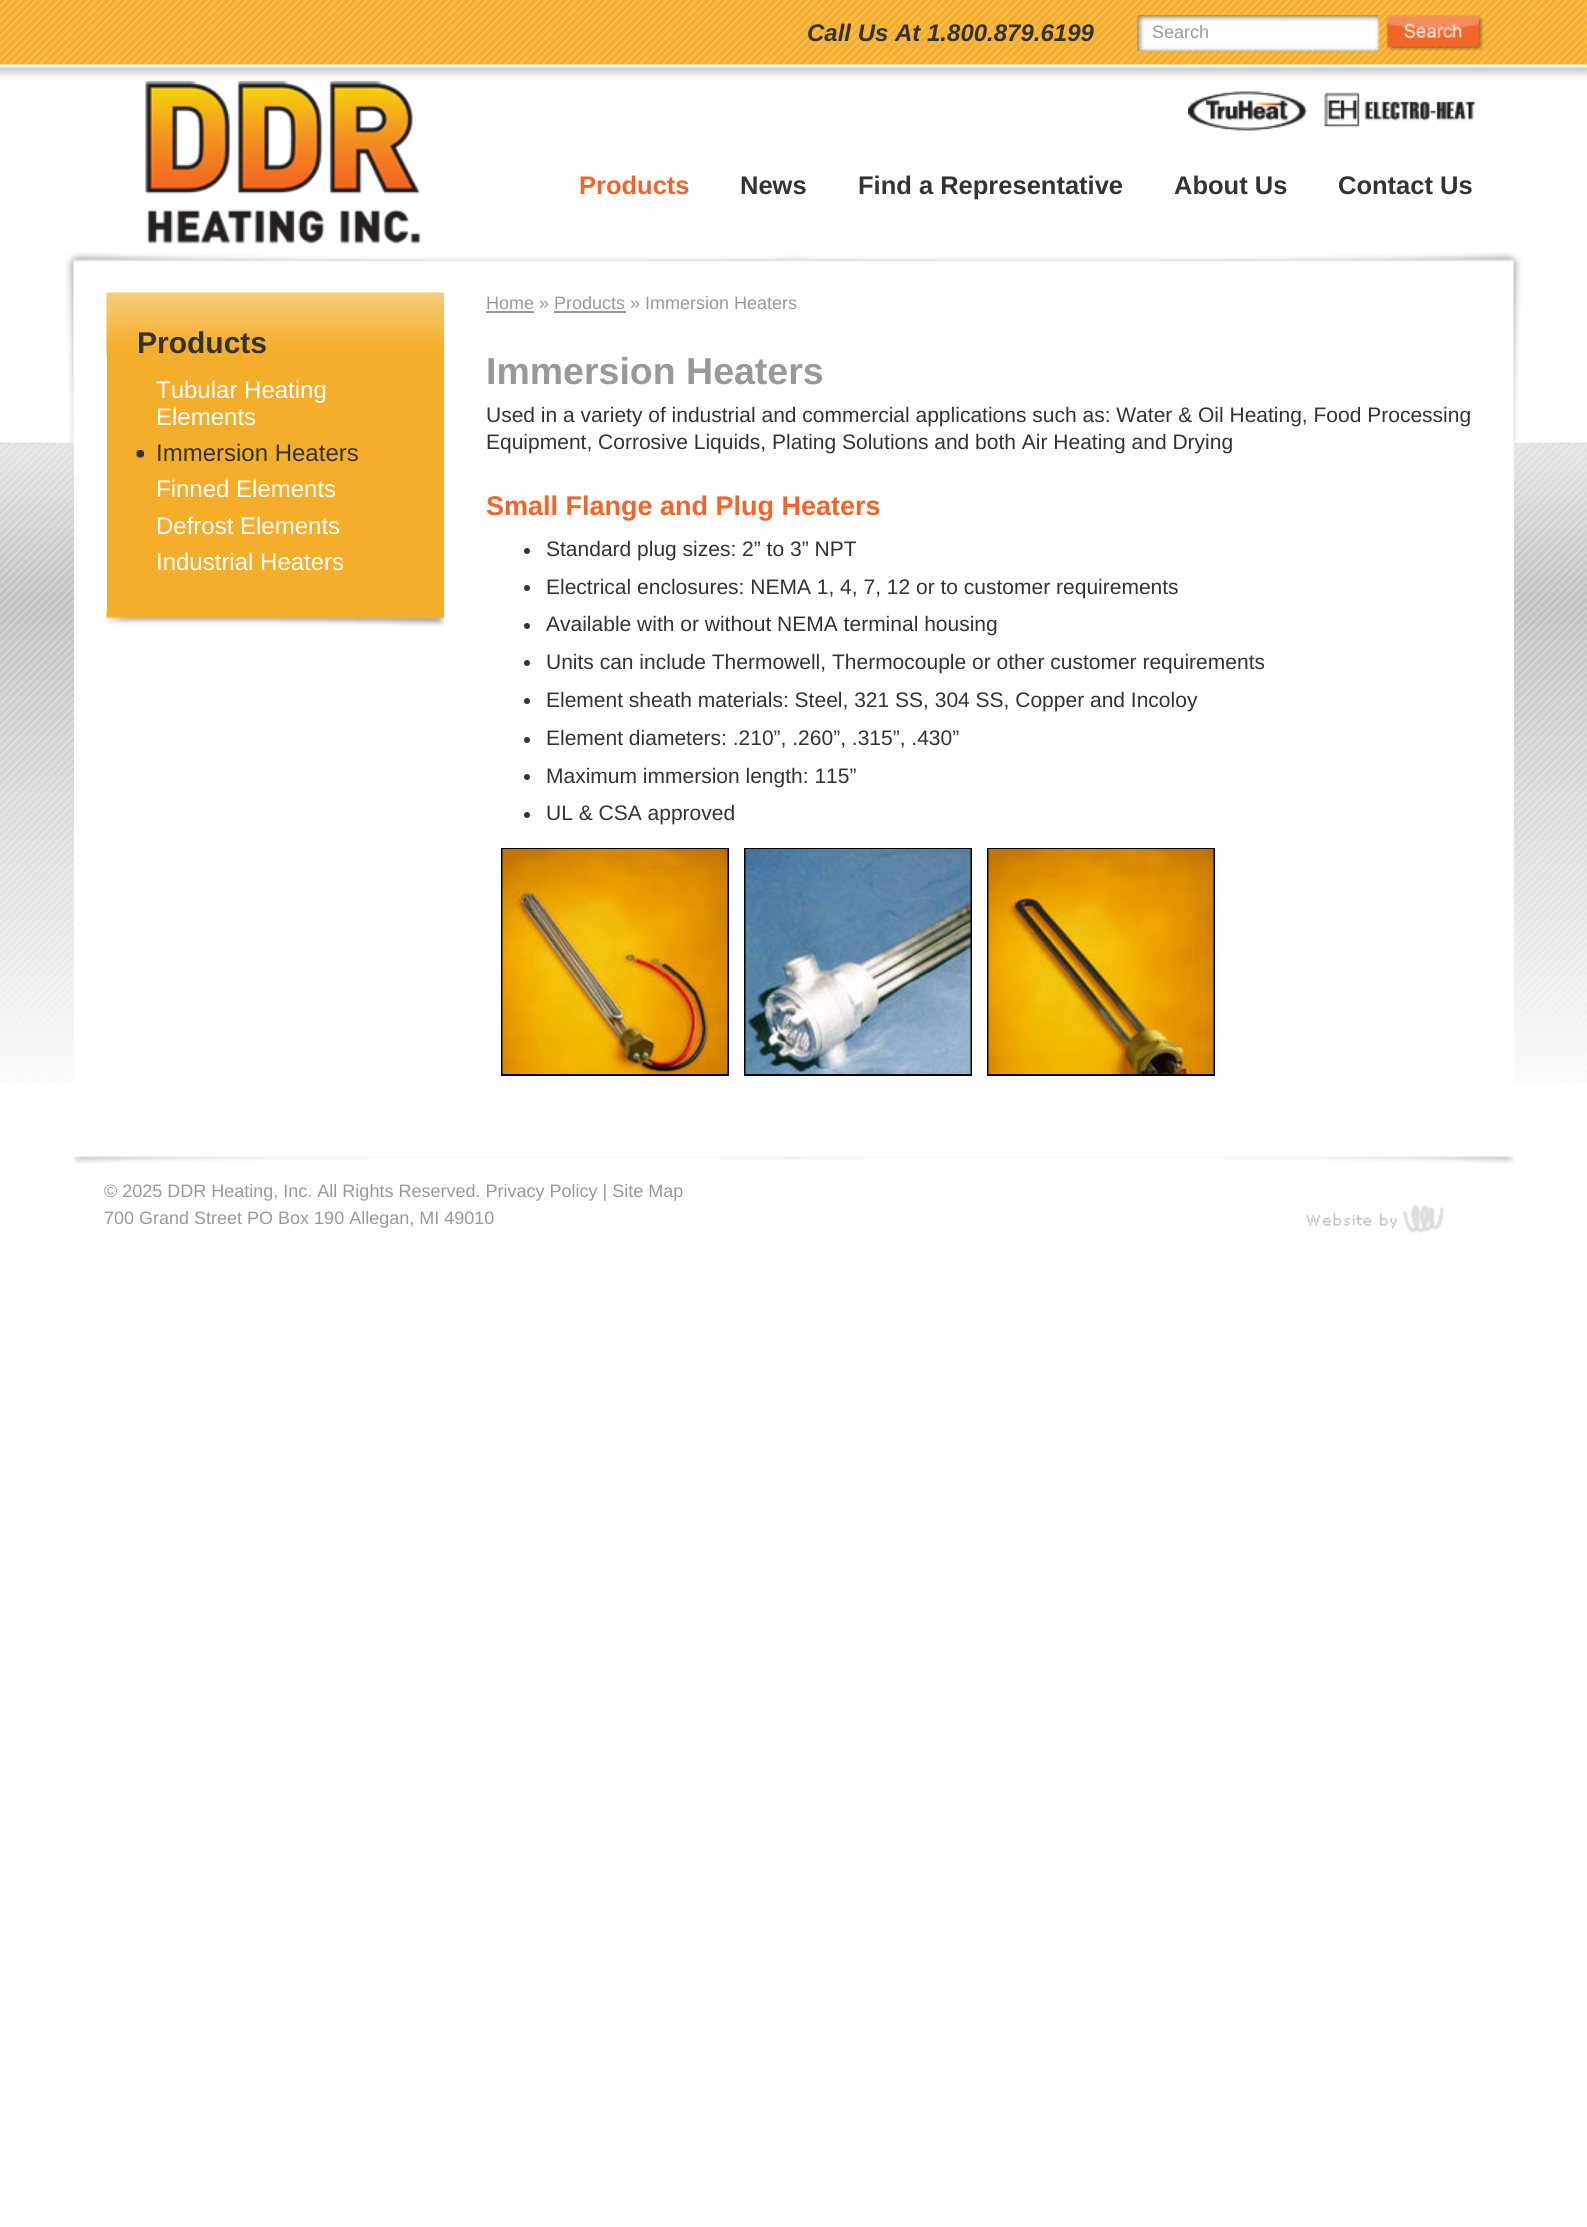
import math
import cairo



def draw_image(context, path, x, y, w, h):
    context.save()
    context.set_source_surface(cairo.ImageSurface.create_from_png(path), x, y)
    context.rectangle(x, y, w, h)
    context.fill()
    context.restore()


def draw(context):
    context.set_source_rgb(1, 1, 1)
    context.paint()
    draw_image(context, "images/1.png", 0, 0, 1587, 1083)
    draw_image(context, "images/2.png", 1137, 15, 242, 36)
    draw_image(context, "images/3.png", 1386, 15, 98, 36)
    draw_image(context, "images/4.png", 145, 80, 276, 164)
    draw_image(context, "images/5.png", 1188, 91, 287, 40)
    context.set_source_rgb(1, 1, 1)
    context.rectangle(74, 442, 1440, 641)
    context.fill()
    draw_image(context, "images/6.png", 59, 252, 1469, 191)
    context.set_source_rgb(245 / 255, 174 / 255, 44 / 255)
    context.rectangle(107, 355, 337, 256)
    context.fill()
    draw_image(context, "images/7.png", 106, 292, 338, 64)
    draw_image(context, "images/8.png", 136, 450, 8, 8)
    draw_image(context, "images/9.png", 106, 610, 338, 17)
    context.set_source_rgb(153 / 255, 153 / 255, 153 / 255)
    context.rectangle(486, 311, 48, 2)
    context.fill()
    context.rectangle(554, 311, 72, 2)
    context.fill()
    context.set_source_rgb(51 / 255, 51 / 255, 51 / 255)
    context.arc(527, 551, 3, 0, 2 * math.pi)
    context.fill()
    context.arc(527, 588, 3, 0, 2 * math.pi)
    context.fill()
    context.arc(527, 626, 3, 0, 2 * math.pi)
    context.fill()
    context.arc(527, 663, 3, 0, 2 * math.pi)
    context.fill()
    context.arc(527, 701, 3, 0, 2 * math.pi)
    context.fill()
    context.arc(527, 740, 3, 0, 2 * math.pi)
    context.fill()
    context.arc(527, 777, 3, 0, 2 * math.pi)
    context.fill()
    context.arc(527, 815, 3, 0, 2 * math.pi)
    context.fill()
    context.rectangle(502, 849, 226, 226)
    context.set_source_rgb(0, 0, 0)
    context.stroke()
    context.rectangle(745, 849, 226, 226)
    context.stroke()
    context.rectangle(988, 849, 226, 226)
    context.stroke()
    draw_image(context, "images/10.png", 502, 849, 226, 225)
    draw_image(context, "images/11.png", 745, 849, 226, 225)
    draw_image(context, "images/12.png", 988, 849, 226, 225)
    draw_image(context, "images/13.png", 73, 1156, 1441, 8)
    draw_image(context, "images/14.png", 1306, 1204, 139, 29)
    context.select_font_face("Liberation Sans", cairo.FontSlant.ITALIC, cairo.FontWeight.BOLD)
    context.set_font_size(24)
    context.set_source_rgb(51 / 255, 51 / 255, 51 / 255)
    context.move_to(807, 41)
    context.show_text("Call Us At 1.800.879.6199")
    context.select_font_face("Liberation Sans")
    context.set_font_size(18)
    context.set_source_rgb(153 / 255, 153 / 255, 153 / 255)
    context.move_to(1152, 38)
    context.show_text("Search")
    context.select_font_face("Liberation Sans", cairo.FontSlant.NORMAL, cairo.FontWeight.BOLD)
    context.set_font_size(25.5)
    context.set_source_rgb(241 / 255, 101 / 255, 40 / 255)
    context.move_to(579, 194)
    context.show_text("Products")
    context.set_source_rgb(51 / 255, 51 / 255, 51 / 255)
    context.move_to(740, 194)
    context.show_text("News")
    context.move_to(858, 194)
    context.show_text("Find a Representative")
    context.move_to(1174, 194)
    context.show_text("About Us")
    context.move_to(1338, 194)
    context.show_text("Contact Us")
    context.set_font_size(30)
    context.move_to(137, 353)
    context.show_text("Products")
    context.select_font_face("Liberation Sans")
    context.set_font_size(24)
    context.set_source_rgb(1, 1, 1)
    context.move_to(156, 398)
    context.show_text("Tubular Heating")
    context.move_to(156, 425)
    context.show_text("Elements")
    context.set_source_rgb(51 / 255, 51 / 255, 51 / 255)
    context.move_to(156, 461)
    context.show_text("Immersion Heaters")
    context.set_source_rgb(1, 1, 1)
    context.move_to(156, 497)
    context.show_text("Finned Elements")
    context.move_to(156, 534)
    context.show_text("Defrost Elements")
    context.move_to(156, 570)
    context.show_text("Industrial Heaters")
    context.set_font_size(18)
    context.set_source_rgb(153 / 255, 153 / 255, 153 / 255)
    context.move_to(486, 309)
    context.show_text("Home » Products » Immersion Heaters")
    context.select_font_face("Liberation Sans", cairo.FontSlant.NORMAL, cairo.FontWeight.BOLD)
    context.set_font_size(37.5)
    context.move_to(486, 384)
    context.show_text("Immersion Heaters")
    context.select_font_face("Liberation Sans")
    context.set_font_size(21)
    context.set_source_rgb(51 / 255, 51 / 255, 51 / 255)
    context.move_to(486, 422)
    context.show_text("Used in a variety of industrial and commercial applications such as: Water & Oil Heating, Food Processing")
    context.move_to(486, 449)
    context.show_text("Equipment, Corrosive Liquids, Plating Solutions and both Air Heating and Drying")
    context.select_font_face("Liberation Sans", cairo.FontSlant.NORMAL, cairo.FontWeight.BOLD)
    context.set_font_size(27)
    context.set_source_rgb(241 / 255, 101 / 255, 40 / 255)
    context.move_to(486, 515)
    context.show_text("Small Flange and Plug Heaters")
    context.select_font_face("Liberation Sans")
    context.set_font_size(21)
    context.set_source_rgb(51 / 255, 51 / 255, 51 / 255)
    context.move_to(546, 556)
    context.show_text("Standard plug sizes: 2” to 3” NPT")
    context.move_to(546, 594)
    context.show_text("Electrical enclosures: NEMA 1, 4, 7, 12 or to customer requirements")
    context.move_to(546, 631)
    context.show_text("Available with or without NEMA terminal housing")
    context.move_to(546, 669)
    context.show_text("Units can include Thermowell, Thermocouple or other customer requirements")
    context.move_to(546, 707)
    context.show_text("Element sheath materials: Steel, 321 SS, 304 SS, Copper and Incoloy")
    context.move_to(546, 745)
    context.show_text("Element diameters: .210”, .260”, .315”, .430”")
    context.move_to(546, 783)
    context.show_text("Maximum immersion length: 115”")
    context.move_to(546, 820)
    context.show_text("UL & CSA approved")
    context.set_font_size(18)
    context.set_source_rgb(153 / 255, 153 / 255, 153 / 255)
    context.move_to(104, 1197)
    context.show_text("© 2025 DDR Heating, Inc. All Rights Reserved. Privacy Policy | Site Map")
    context.move_to(104, 1224)
    context.show_text("700 Grand Street PO Box 190 Allegan, MI 49010")


surface = cairo.ImageSurface(cairo.Format.RGB24, 1587, 2227)
context = cairo.Context(surface)
options = cairo.FontOptions()
options.set_hint_metrics(cairo.HintMetrics.OFF)
options.set_hint_style(cairo.HintStyle.NONE)
context.set_font_options(options)
context.set_miter_limit(4)
draw(context)
surface.write_to_png("out.png")
